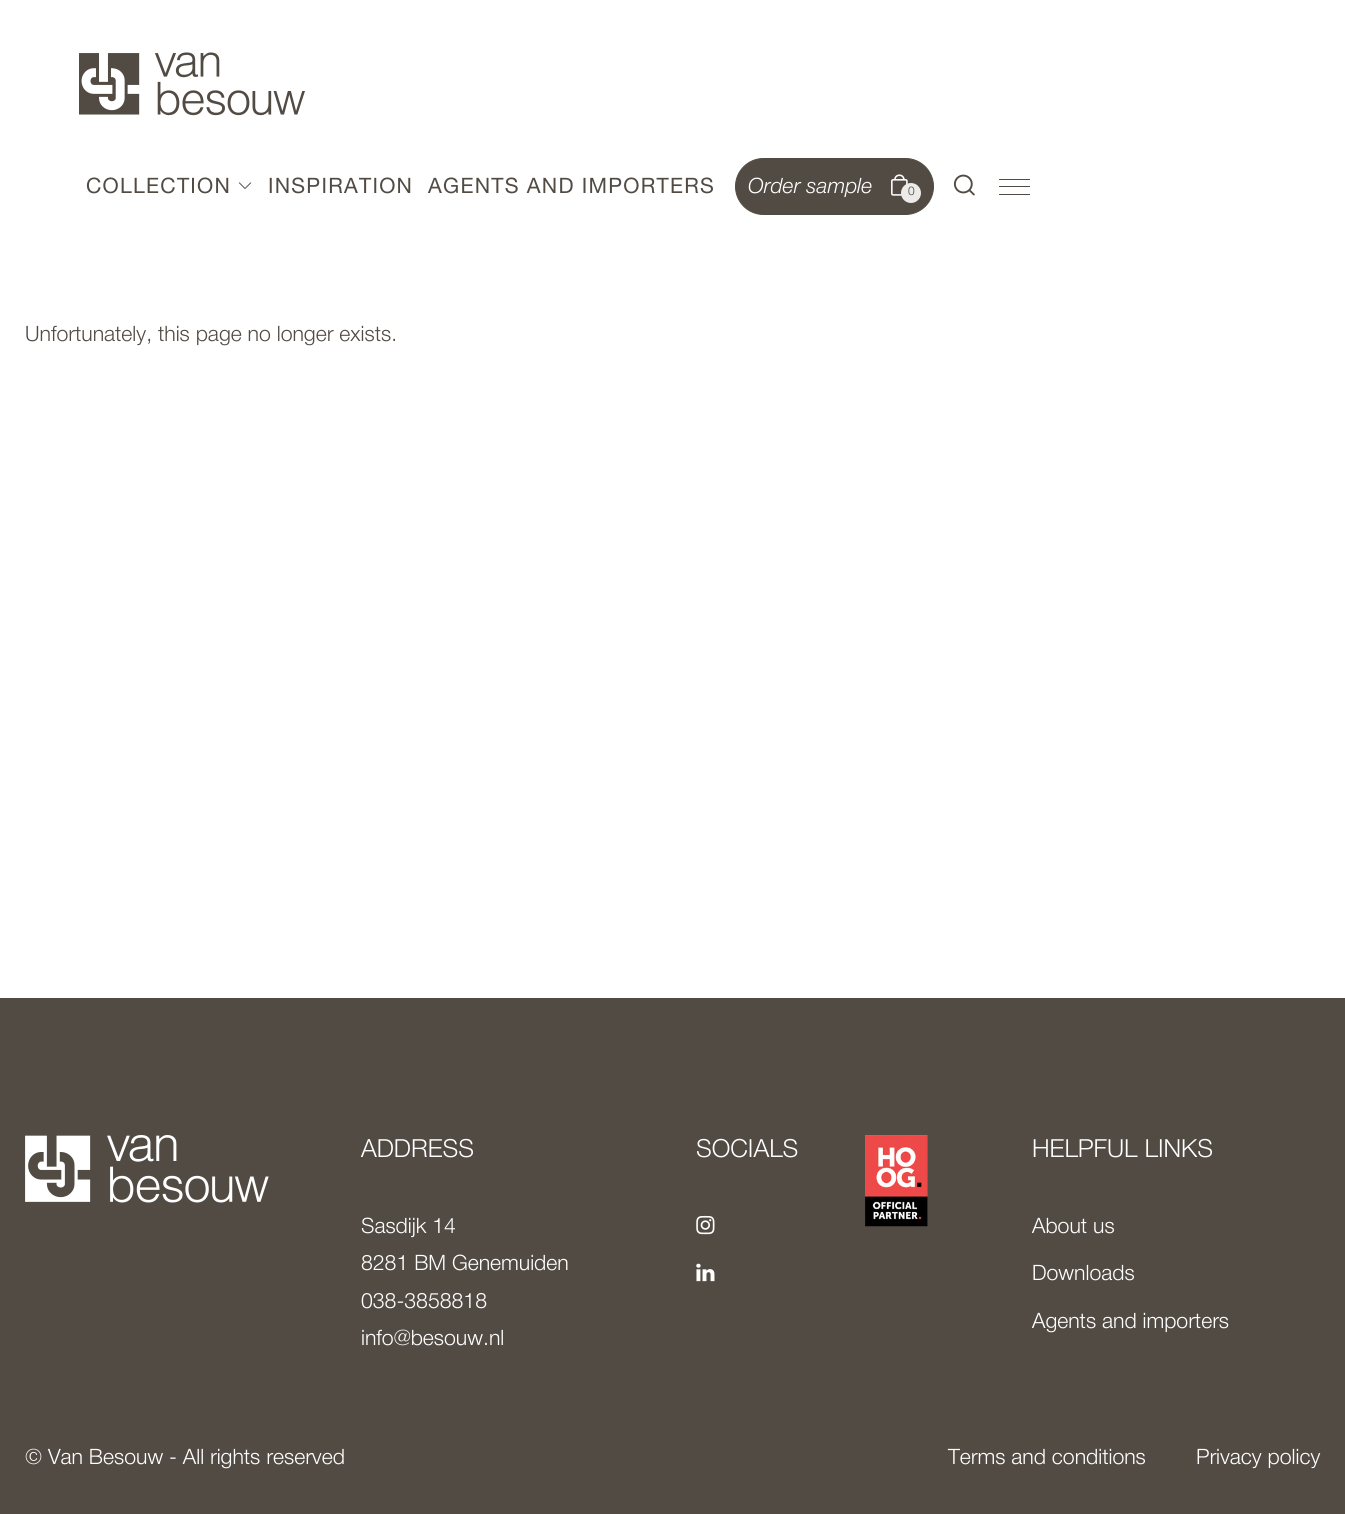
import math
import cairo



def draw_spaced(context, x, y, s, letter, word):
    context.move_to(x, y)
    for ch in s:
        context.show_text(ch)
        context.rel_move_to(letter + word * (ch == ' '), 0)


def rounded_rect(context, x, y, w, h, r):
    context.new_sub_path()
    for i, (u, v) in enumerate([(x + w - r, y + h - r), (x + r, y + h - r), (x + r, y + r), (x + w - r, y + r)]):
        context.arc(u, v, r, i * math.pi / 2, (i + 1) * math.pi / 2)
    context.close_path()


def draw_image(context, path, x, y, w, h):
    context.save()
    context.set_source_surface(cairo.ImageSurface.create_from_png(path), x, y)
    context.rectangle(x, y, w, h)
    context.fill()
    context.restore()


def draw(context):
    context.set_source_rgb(1, 1, 1)
    context.paint()
    draw_image(context, "images/1.png", 79, 52, 226, 64)
    draw_image(context, "images/2.png", 238, 182, 14, 7)
    context.set_source_rgb(82 / 255, 75 / 255, 68 / 255)
    rounded_rect(context, 735.5, 158.5, 198, 56, 28)
    context.fill_preserve()
    context.set_line_width(1)
    context.stroke()
    draw_image(context, "images/3.png", 891, 174, 17, 22)
    context.set_source_rgb(236 / 255, 235 / 255, 233 / 255)
    context.arc(911, 193, 10, 0, 2 * math.pi)
    context.fill()
    draw_image(context, "images/4.png", 953, 174, 22, 22)
    context.set_source_rgb(82 / 255, 75 / 255, 68 / 255)
    context.rectangle(999, 194, 31, 1)
    context.fill()
    context.rectangle(999, 179, 31, 1)
    context.fill()
    context.rectangle(999, 186, 31, 1)
    context.fill()
    context.rectangle(0, 998, 1345, 516)
    context.fill()
    draw_image(context, "images/5.png", 25, 1135, 244, 68)
    draw_image(context, "images/6.png", 696, 1215, 19, 20)
    draw_image(context, "images/7.png", 696, 1263, 19, 19)
    draw_image(context, "images/8.png", 865, 1135, 63, 92)
    context.select_font_face("Helvetica Neue")
    context.set_font_size(21.25)
    draw_spaced(context, 86, 193, "COLLECTION", 1.25, 0)
    draw_spaced(context, 268, 193, "INSPIRATION", 1.25, 0)
    draw_spaced(context, 428, 193, "AGENTS AND IMPORTERS", 1.25, 0)
    context.select_font_face("Helvetica Neue Light", cairo.FontSlant.ITALIC)
    context.set_source_rgb(1, 1, 1)
    context.move_to(748, 193)
    context.show_text("Order sample")
    context.select_font_face("Helvetica Neue Light")
    context.set_font_size(12)
    context.set_source_rgb(82 / 255, 75 / 255, 68 / 255)
    context.move_to(908, 195)
    context.show_text("0")
    context.set_font_size(21.25)
    context.move_to(25, 341)
    context.show_text("Unfortunately, this page no longer exists.")
    context.set_font_size(25)
    context.set_source_rgb(1, 1, 1)
    context.move_to(361, 1157)
    context.show_text("ADDRESS")
    context.set_font_size(21.25)
    context.move_to(361, 1233)
    context.show_text("Sasdijk 14")
    context.move_to(361, 1270)
    context.show_text("8281 BM Genemuiden")
    context.move_to(361, 1308)
    context.show_text("038-3858818")
    context.move_to(361, 1345)
    context.show_text("info@besouw.nl")
    context.set_font_size(25)
    context.move_to(696, 1157)
    context.show_text("SOCIALS")
    context.move_to(1032, 1157)
    context.show_text("HELPFUL LINKS")
    context.set_font_size(21.25)
    context.move_to(1032, 1233)
    context.show_text("About us")
    context.move_to(1032, 1280)
    context.show_text("Downloads")
    context.move_to(1032, 1328)
    context.show_text("Agents and importers")
    context.move_to(25, 1464)
    context.show_text("© Van Besouw - All rights reserved")
    context.move_to(948, 1464)
    context.show_text("Terms and conditions")
    context.move_to(1196, 1464)
    context.show_text("Privacy policy")


surface = cairo.ImageSurface(cairo.Format.RGB24, 1345, 1514)
context = cairo.Context(surface)
options = cairo.FontOptions()
options.set_hint_metrics(cairo.HintMetrics.OFF)
options.set_hint_style(cairo.HintStyle.NONE)
context.set_font_options(options)
context.set_miter_limit(4)
draw(context)
surface.write_to_png("out.png")
